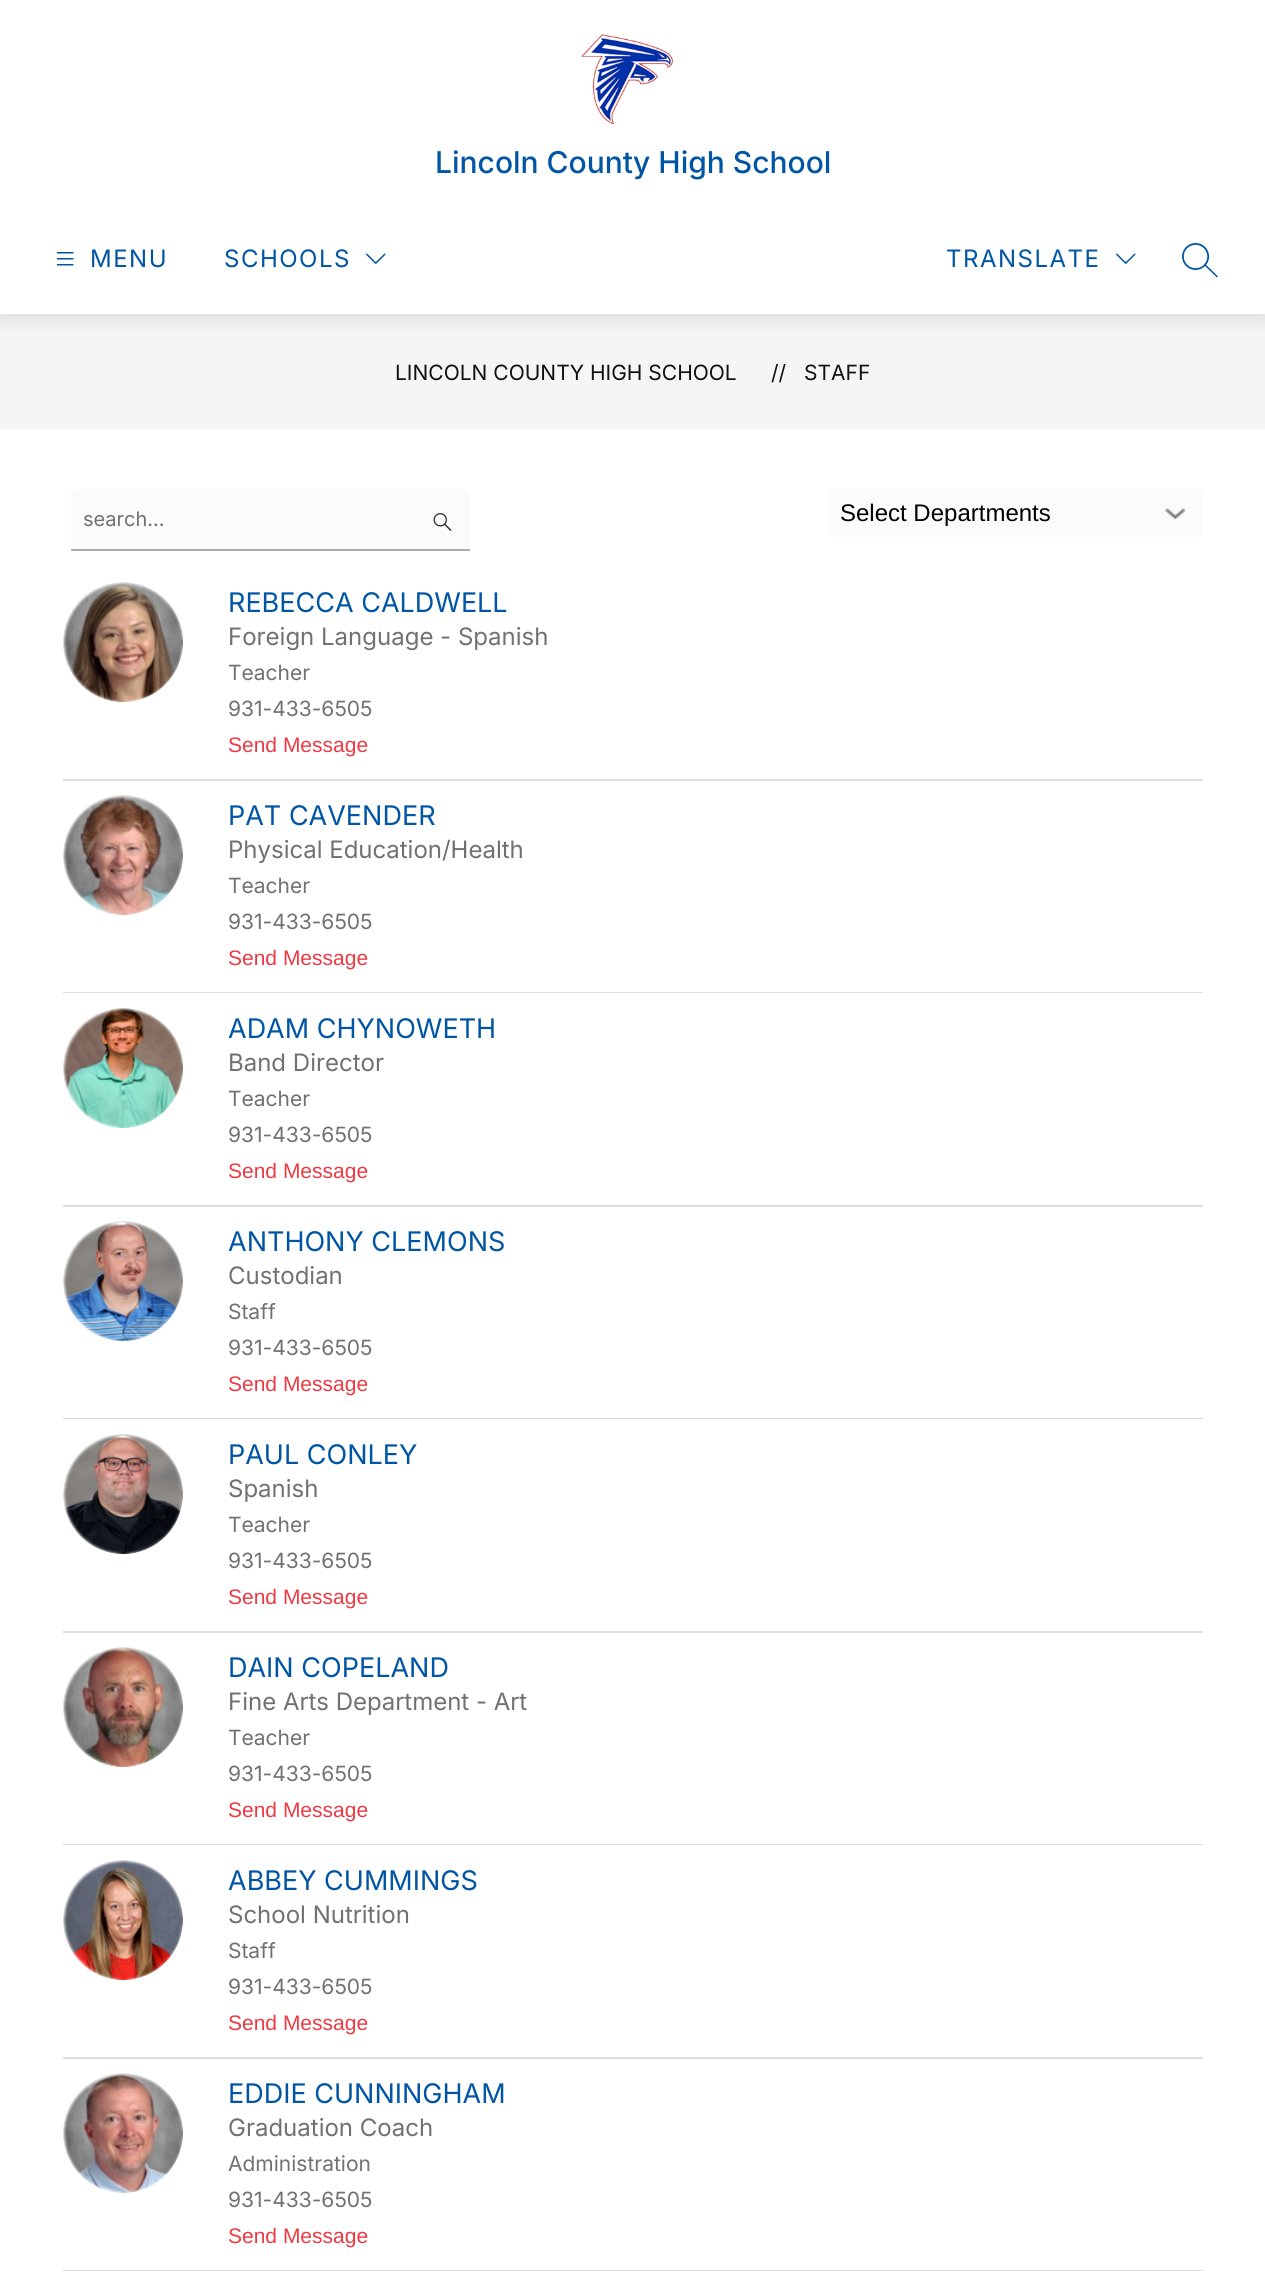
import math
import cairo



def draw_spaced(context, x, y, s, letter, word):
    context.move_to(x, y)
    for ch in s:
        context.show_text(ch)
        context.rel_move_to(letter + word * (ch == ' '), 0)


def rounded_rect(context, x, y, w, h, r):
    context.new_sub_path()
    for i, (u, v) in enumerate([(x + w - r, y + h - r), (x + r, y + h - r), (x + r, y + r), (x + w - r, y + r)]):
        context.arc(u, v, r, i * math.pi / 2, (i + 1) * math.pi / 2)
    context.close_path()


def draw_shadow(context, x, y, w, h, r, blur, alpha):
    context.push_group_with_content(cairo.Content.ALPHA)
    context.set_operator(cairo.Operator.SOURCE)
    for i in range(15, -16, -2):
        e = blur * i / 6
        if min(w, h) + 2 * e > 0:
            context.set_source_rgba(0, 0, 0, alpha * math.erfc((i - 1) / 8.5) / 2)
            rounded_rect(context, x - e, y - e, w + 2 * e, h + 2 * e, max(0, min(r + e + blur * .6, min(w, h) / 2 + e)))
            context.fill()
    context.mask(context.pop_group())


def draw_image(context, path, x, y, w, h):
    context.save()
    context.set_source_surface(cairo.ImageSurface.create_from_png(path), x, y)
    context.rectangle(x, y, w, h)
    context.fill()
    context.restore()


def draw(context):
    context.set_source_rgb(1, 1, 1)
    context.paint()
    context.set_source_rgb(245 / 255, 245 / 255, 245 / 255)
    context.rectangle(0, 314, 1265, 115)
    context.fill()
    context.set_source_rgb(0, 0, 0)
    draw_shadow(context, 0, 6, 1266, 314, 0, 7.5, 0.1)
    context.set_source_rgb(1, 1, 1)
    context.rectangle(0, 0, 1265, 314)
    context.fill()
    draw_image(context, "images/1.png", 581, 34, 92, 91)
    draw_image(context, "images/2.png", 57, 252, 17, 14)
    draw_image(context, "images/3.png", 366, 253, 20, 11)
    draw_image(context, "images/3.png", 1116, 253, 20, 11)
    draw_image(context, "images/4.png", 1182, 243, 36, 35)
    context.set_source_rgb(251 / 255, 251 / 255, 251 / 255)
    context.new_path()
    context.move_to(77, 489)
    context.line_to(464, 489)
    context.curve_to(467.5, 489, 470, 491.5, 470, 495)
    context.line_to(470, 551)
    context.line_to(71, 551)
    context.line_to(71, 495)
    context.curve_to(71, 491.5, 73.5, 489, 77, 489)
    context.close_path()
    context.fill()
    context.set_source_rgb(173 / 255, 173 / 255, 173 / 255)
    context.rectangle(71, 549, 399, 2)
    context.fill()
    draw_image(context, "images/5.png", 433, 513, 19, 18)
    context.set_source_rgb(251 / 255, 251 / 255, 251 / 255)
    context.new_path()
    context.move_to(828, 489)
    context.line_to(1203, 489)
    context.line_to(1203, 531)
    context.curve_to(1203, 534.5, 1200.5, 537, 1197, 537)
    context.line_to(834, 537)
    context.curve_to(830.5, 537, 828, 534.5, 828, 531)
    context.close_path()
    context.fill()
    draw_image(context, "images/6.png", 1165, 508, 20, 11)
    context.set_source_rgb(221 / 255, 221 / 255, 221 / 255)
    context.rectangle(63, 779, 1140, 2)
    context.fill()
    draw_image(context, "images/7.png", 63, 582, 120, 120)
    context.rectangle(63, 992, 1140, 1)
    context.fill()
    draw_image(context, "images/8.png", 63, 795, 120, 120)
    context.rectangle(63, 1205, 1140, 2)
    context.fill()
    draw_image(context, "images/9.png", 63, 1008, 120, 120)
    context.rectangle(63, 1418, 1140, 1)
    context.fill()
    draw_image(context, "images/10.png", 63, 1221, 120, 120)
    context.rectangle(63, 1631, 1140, 2)
    context.fill()
    draw_image(context, "images/11.png", 63, 1434, 120, 120)
    context.rectangle(63, 1844, 1140, 1)
    context.fill()
    draw_image(context, "images/12.png", 63, 1647, 120, 120)
    context.rectangle(63, 2057, 1140, 2)
    context.fill()
    draw_image(context, "images/13.png", 63, 1860, 120, 120)
    context.rectangle(63, 2270, 1140, 1)
    context.fill()
    draw_image(context, "images/14.png", 63, 2073, 120, 120)
    context.select_font_face("Inter Medium")
    context.set_font_size(30)
    context.set_source_rgb(0, 85 / 255, 165 / 255)
    context.move_to(435, 173)
    context.show_text("Lincoln County High School")
    context.select_font_face("Inter")
    context.set_font_size(24)
    draw_spaced(context, 90, 267, "MENU", 1.5, 0)
    draw_spaced(context, 224, 267, "SCHOOLS", 1.5, 0)
    draw_spaced(context, 946, 267, "TRANSLATE", 1.5, 0)
    context.set_font_size(21)
    context.set_source_rgb(17 / 255, 17 / 255, 17 / 255)
    context.move_to(395, 380)
    context.show_text("LINCOLN COUNTY HIGH SCHOOL")
    context.move_to(771, 380)
    context.show_text("//")
    context.move_to(804, 380)
    context.show_text("STAFF")
    context.set_font_size(20)
    context.set_source_rgb(113 / 255, 113 / 255, 113 / 255)
    context.move_to(83, 526)
    context.show_text("search...")
    context.select_font_face("Liberation Sans")
    context.set_font_size(24)
    context.set_source_rgb(0, 0, 0)
    context.move_to(840, 521)
    context.show_text("Select Departments")
    context.select_font_face("Inter")
    context.set_font_size(27)
    context.set_source_rgb(0, 85 / 255, 165 / 255)
    context.move_to(228, 612)
    context.show_text("REBECCA CALDWELL")
    context.set_font_size(24)
    context.set_source_rgb(113 / 255, 113 / 255, 113 / 255)
    context.move_to(228, 645)
    context.show_text("Foreign Language - Spanish")
    context.set_font_size(21)
    context.move_to(228, 680)
    context.show_text("Teacher")
    context.move_to(228, 716)
    context.show_text("931-433-6505")
    context.select_font_face("Liberation Sans")
    context.set_source_rgb(237 / 255, 57 / 255, 67 / 255)
    context.move_to(228, 752)
    context.show_text("Send Message")
    context.select_font_face("Inter")
    context.set_font_size(27)
    context.set_source_rgb(0, 85 / 255, 165 / 255)
    context.move_to(228, 825)
    context.show_text("PAT CAVENDER")
    context.set_font_size(24)
    context.set_source_rgb(113 / 255, 113 / 255, 113 / 255)
    context.move_to(228, 858)
    context.show_text("Physical Education/Health")
    context.set_font_size(21)
    context.move_to(228, 893)
    context.show_text("Teacher")
    context.move_to(228, 929)
    context.show_text("931-433-6505")
    context.select_font_face("Liberation Sans")
    context.set_source_rgb(237 / 255, 57 / 255, 67 / 255)
    context.move_to(228, 965)
    context.show_text("Send Message")
    context.select_font_face("Inter")
    context.set_font_size(27)
    context.set_source_rgb(0, 85 / 255, 165 / 255)
    context.move_to(228, 1038)
    context.show_text("ADAM CHYNOWETH")
    context.set_font_size(24)
    context.set_source_rgb(113 / 255, 113 / 255, 113 / 255)
    context.move_to(228, 1071)
    context.show_text("Band Director")
    context.set_font_size(21)
    context.move_to(228, 1106)
    context.show_text("Teacher")
    context.move_to(228, 1142)
    context.show_text("931-433-6505")
    context.select_font_face("Liberation Sans")
    context.set_source_rgb(237 / 255, 57 / 255, 67 / 255)
    context.move_to(228, 1178)
    context.show_text("Send Message")
    context.select_font_face("Inter")
    context.set_font_size(27)
    context.set_source_rgb(0, 85 / 255, 165 / 255)
    context.move_to(228, 1251)
    context.show_text("ANTHONY CLEMONS")
    context.set_font_size(24)
    context.set_source_rgb(113 / 255, 113 / 255, 113 / 255)
    context.move_to(228, 1284)
    context.show_text("Custodian")
    context.set_font_size(21)
    context.move_to(228, 1319)
    context.show_text("Staff")
    context.move_to(228, 1355)
    context.show_text("931-433-6505")
    context.select_font_face("Liberation Sans")
    context.set_source_rgb(237 / 255, 57 / 255, 67 / 255)
    context.move_to(228, 1391)
    context.show_text("Send Message")
    context.select_font_face("Inter")
    context.set_font_size(27)
    context.set_source_rgb(0, 85 / 255, 165 / 255)
    context.move_to(228, 1464)
    context.show_text("PAUL CONLEY")
    context.set_font_size(24)
    context.set_source_rgb(113 / 255, 113 / 255, 113 / 255)
    context.move_to(228, 1497)
    context.show_text("Spanish")
    context.set_font_size(21)
    context.move_to(228, 1532)
    context.show_text("Teacher")
    context.move_to(228, 1568)
    context.show_text("931-433-6505")
    context.select_font_face("Liberation Sans")
    context.set_source_rgb(237 / 255, 57 / 255, 67 / 255)
    context.move_to(228, 1604)
    context.show_text("Send Message")
    context.select_font_face("Inter")
    context.set_font_size(27)
    context.set_source_rgb(0, 85 / 255, 165 / 255)
    context.move_to(228, 1677)
    context.show_text("DAIN COPELAND")
    context.set_font_size(24)
    context.set_source_rgb(113 / 255, 113 / 255, 113 / 255)
    context.move_to(228, 1710)
    context.show_text("Fine Arts Department - Art")
    context.set_font_size(21)
    context.move_to(228, 1745)
    context.show_text("Teacher")
    context.move_to(228, 1781)
    context.show_text("931-433-6505")
    context.select_font_face("Liberation Sans")
    context.set_source_rgb(237 / 255, 57 / 255, 67 / 255)
    context.move_to(228, 1817)
    context.show_text("Send Message")
    context.select_font_face("Inter")
    context.set_font_size(27)
    context.set_source_rgb(0, 85 / 255, 165 / 255)
    context.move_to(228, 1890)
    context.show_text("ABBEY CUMMINGS")
    context.set_font_size(24)
    context.set_source_rgb(113 / 255, 113 / 255, 113 / 255)
    context.move_to(228, 1923)
    context.show_text("School Nutrition")
    context.set_font_size(21)
    context.move_to(228, 1958)
    context.show_text("Staff")
    context.move_to(228, 1994)
    context.show_text("931-433-6505")
    context.select_font_face("Liberation Sans")
    context.set_source_rgb(237 / 255, 57 / 255, 67 / 255)
    context.move_to(228, 2030)
    context.show_text("Send Message")
    context.select_font_face("Inter")
    context.set_font_size(27)
    context.set_source_rgb(0, 85 / 255, 165 / 255)
    context.move_to(228, 2103)
    context.show_text("EDDIE CUNNINGHAM")
    context.set_font_size(24)
    context.set_source_rgb(113 / 255, 113 / 255, 113 / 255)
    context.move_to(228, 2136)
    context.show_text("Graduation Coach")
    context.set_font_size(21)
    context.move_to(228, 2171)
    context.show_text("Administration")
    context.move_to(228, 2207)
    context.show_text("931-433-6505")
    context.select_font_face("Liberation Sans")
    context.set_source_rgb(237 / 255, 57 / 255, 67 / 255)
    context.move_to(228, 2243)
    context.show_text("Send Message")


surface = cairo.ImageSurface(cairo.Format.RGB24, 1265, 2272)
context = cairo.Context(surface)
options = cairo.FontOptions()
options.set_hint_metrics(cairo.HintMetrics.OFF)
options.set_hint_style(cairo.HintStyle.NONE)
context.set_font_options(options)
context.set_miter_limit(4)
draw(context)
surface.write_to_png("out.png")
